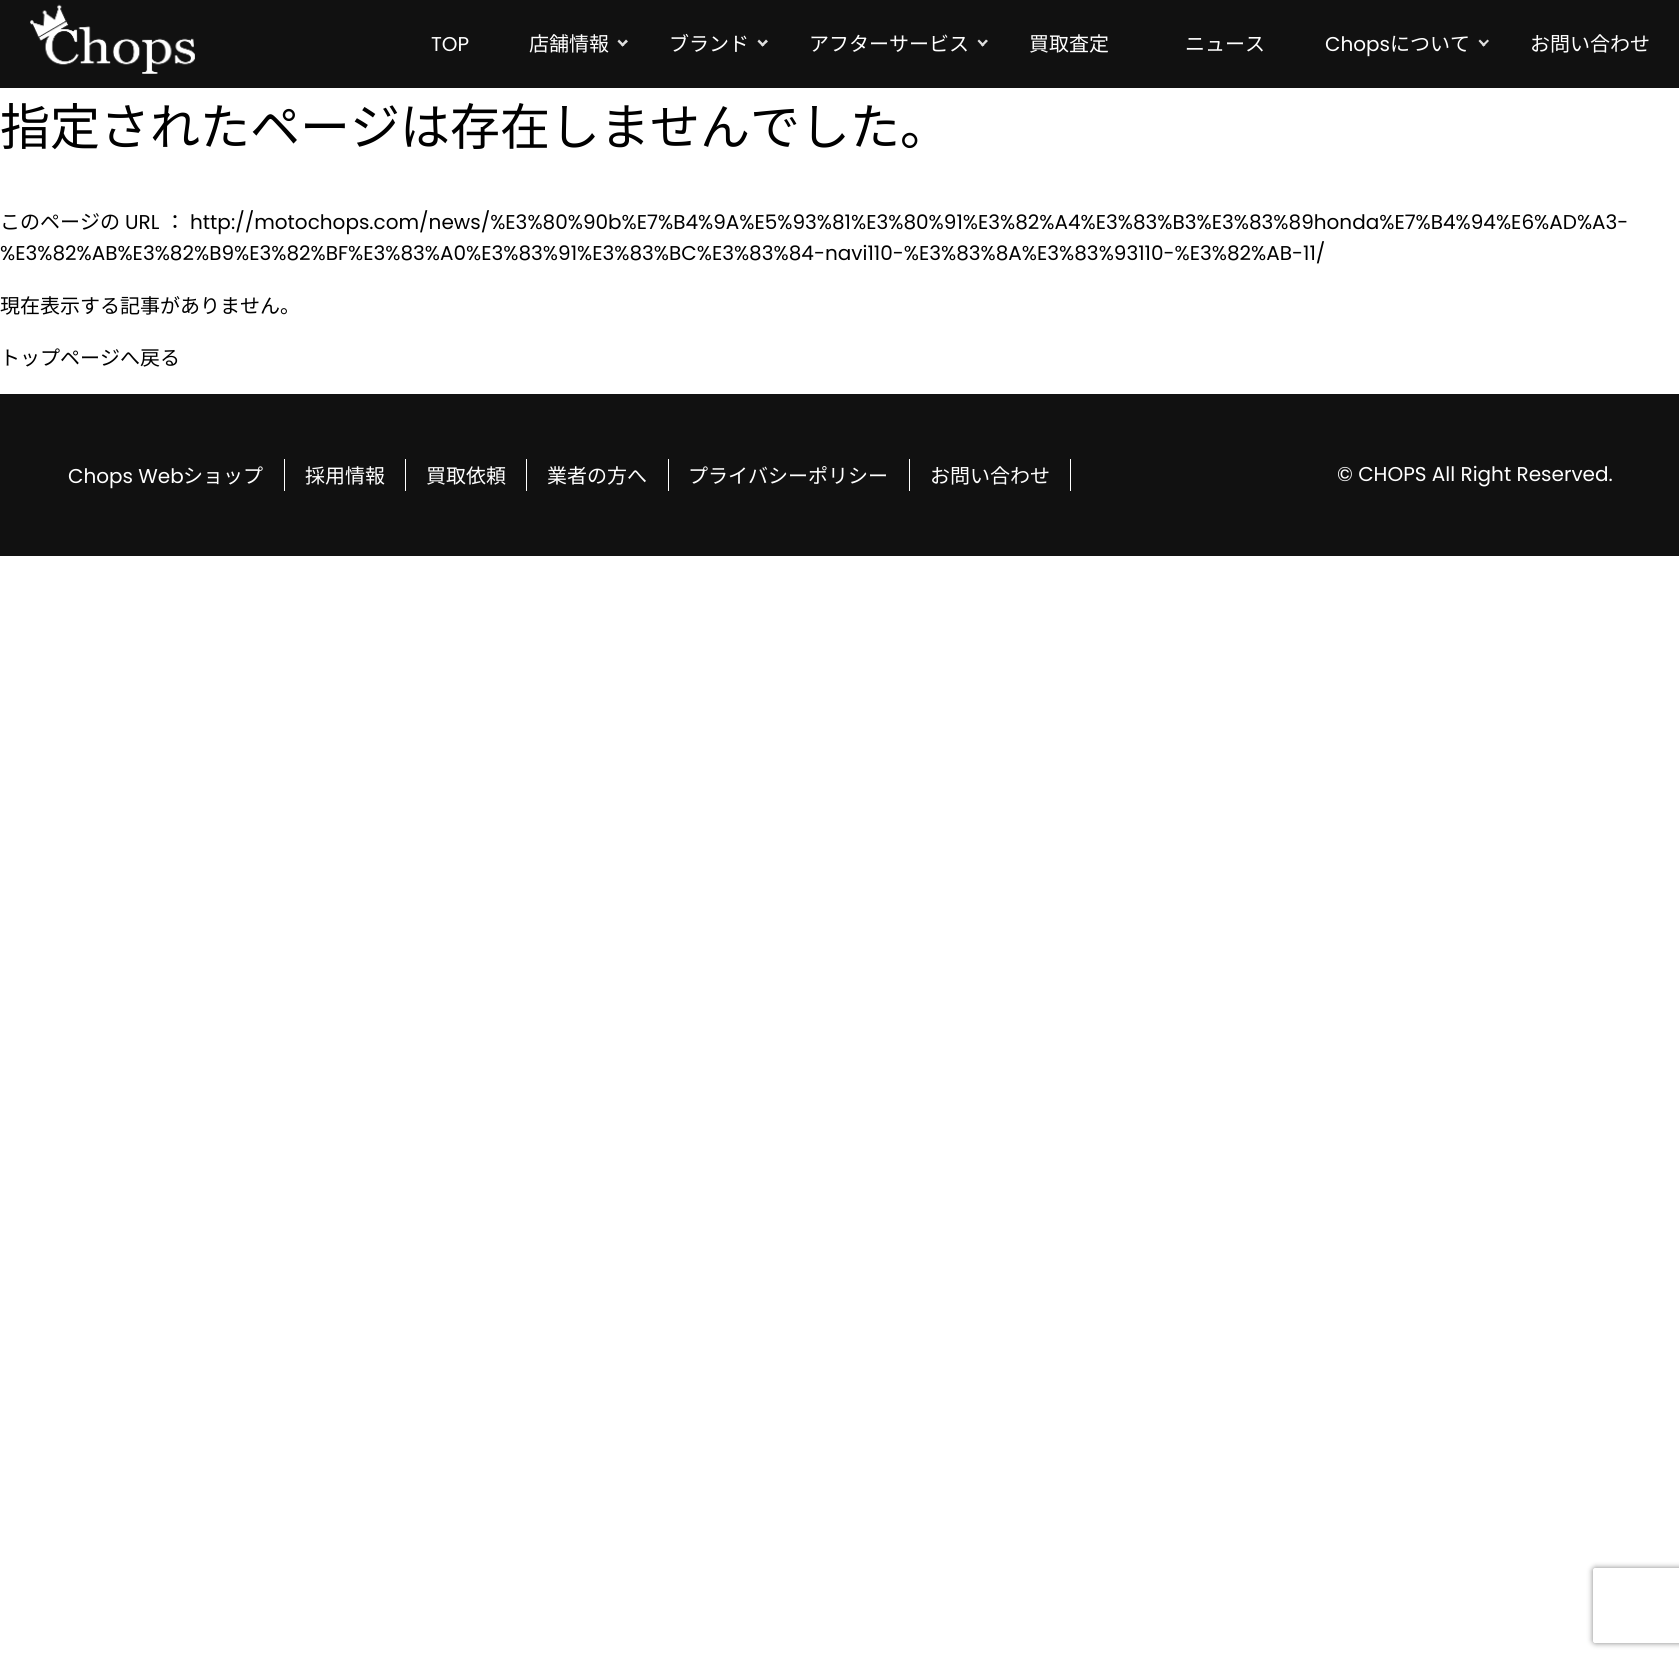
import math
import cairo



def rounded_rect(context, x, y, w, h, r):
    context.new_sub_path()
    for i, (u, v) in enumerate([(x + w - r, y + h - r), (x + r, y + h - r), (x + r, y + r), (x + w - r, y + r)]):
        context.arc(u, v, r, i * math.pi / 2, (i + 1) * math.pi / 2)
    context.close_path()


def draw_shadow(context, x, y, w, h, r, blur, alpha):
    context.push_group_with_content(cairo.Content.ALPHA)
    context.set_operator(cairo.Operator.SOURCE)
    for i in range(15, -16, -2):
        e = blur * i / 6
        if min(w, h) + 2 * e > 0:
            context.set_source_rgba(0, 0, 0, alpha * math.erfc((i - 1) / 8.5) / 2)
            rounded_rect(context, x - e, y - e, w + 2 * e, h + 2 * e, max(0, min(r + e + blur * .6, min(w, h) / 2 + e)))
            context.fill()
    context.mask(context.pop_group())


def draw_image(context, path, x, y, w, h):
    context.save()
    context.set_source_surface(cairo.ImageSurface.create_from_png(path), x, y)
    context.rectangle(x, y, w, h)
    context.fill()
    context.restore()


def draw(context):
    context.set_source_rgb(1, 1, 1)
    context.paint()
    context.set_source_rgb(17 / 255, 17 / 255, 17 / 255)
    context.rectangle(0, 0, 1679, 88)
    context.fill()
    draw_image(context, "images/1.png", 30, 4, 165, 70)
    context.set_source_rgb(223 / 255, 223 / 255, 223 / 255)
    context.new_path()
    context.move_to(628, 41.5)
    context.line_to(622.5, 46.5)
    context.line_to(621, 45)
    context.line_to(626, 39.5)
    context.close_path()
    context.fill()
    context.new_path()
    context.move_to(624.5, 45)
    context.line_to(622.5, 46.5)
    context.line_to(617.5, 41.5)
    context.line_to(619, 39.5)
    context.close_path()
    context.fill()
    context.new_path()
    context.move_to(768, 41.5)
    context.line_to(762.5, 46.5)
    context.line_to(761, 45)
    context.line_to(766, 39.5)
    context.close_path()
    context.fill()
    context.new_path()
    context.move_to(764.5, 45)
    context.line_to(762.5, 46.5)
    context.line_to(757.5, 41.5)
    context.line_to(759, 39.5)
    context.close_path()
    context.fill()
    context.new_path()
    context.move_to(988, 41)
    context.line_to(982.5, 46.5)
    context.line_to(981, 45)
    context.line_to(986, 39.5)
    context.close_path()
    context.fill()
    context.new_path()
    context.move_to(984.5, 45)
    context.line_to(982.5, 46.5)
    context.line_to(977.5, 41)
    context.line_to(979, 39.5)
    context.close_path()
    context.fill()
    context.new_path()
    context.move_to(1489, 41)
    context.line_to(1483.5, 46.5)
    context.line_to(1482, 45)
    context.line_to(1487.5, 39.5)
    context.close_path()
    context.fill()
    context.new_path()
    context.move_to(1485.5, 45)
    context.line_to(1483.5, 46.5)
    context.line_to(1478.5, 41)
    context.line_to(1480, 39.5)
    context.close_path()
    context.fill()
    context.set_source_rgb(17 / 255, 17 / 255, 17 / 255)
    context.rectangle(0, 394, 1679, 162)
    context.fill()
    context.set_source_rgb(1, 1, 1)
    context.rectangle(284, 459, 1, 32)
    context.fill()
    context.rectangle(405, 459, 1, 32)
    context.fill()
    context.rectangle(526, 459, 1, 32)
    context.fill()
    context.rectangle(668, 459, 1, 32)
    context.fill()
    context.rectangle(909, 459, 1, 32)
    context.fill()
    context.rectangle(1070, 459, 1, 32)
    context.fill()
    context.save()
    context.set_fill_rule(cairo.FillRule.EVEN_ODD)
    context.new_path()
    context.move_to(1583, 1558)
    context.line_to(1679, 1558)
    context.line_to(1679, 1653)
    context.line_to(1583, 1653)
    context.close_path()
    context.move_to(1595.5, 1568)
    context.line_to(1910.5, 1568)
    context.curve_to(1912, 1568, 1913, 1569, 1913, 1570.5)
    context.line_to(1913, 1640.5)
    context.curve_to(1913, 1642, 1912, 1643, 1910.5, 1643)
    context.line_to(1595.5, 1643)
    context.curve_to(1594, 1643, 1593, 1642, 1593, 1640.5)
    context.line_to(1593, 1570.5)
    context.curve_to(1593, 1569, 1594, 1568, 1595.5, 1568)
    context.close_path()
    context.clip()
    context.set_source_rgb(128 / 255, 128 / 255, 128 / 255)
    draw_shadow(context, 1593, 1568, 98, 75, 2.5, 3, 1)
    context.restore()
    context.select_font_face("Poppins")
    context.set_font_size(20)
    context.move_to(431, 51)
    context.show_text("TOP")
    context.select_font_face("Noto Sans JP Thin")
    context.move_to(529, 51)
    context.show_text("店舗情報")
    context.move_to(669, 51)
    context.show_text("ブランド")
    context.move_to(809, 51)
    context.show_text("アフターサービス")
    context.move_to(1029, 51)
    context.show_text("買取査定")
    context.move_to(1185, 51)
    context.show_text("ニュース")
    context.select_font_face("Poppins")
    context.move_to(1325, 51)
    context.show_text("Chops")
    context.select_font_face("Noto Sans JP Thin")
    context.move_to(1390, 51)
    context.show_text("について")
    context.move_to(1530, 51)
    context.show_text("お問い合わせ")
    context.set_font_size(50)
    context.set_source_rgb(0, 0, 0)
    context.move_to(0, 145)
    context.show_text("指定されたページは存在しませんでした。")
    context.set_font_size(20)
    context.move_to(0, 229)
    context.show_text("このページの")
    context.select_font_face("Poppins")
    context.move_to(125, 229)
    context.show_text("URL")
    context.select_font_face("Noto Sans JP Thin")
    context.move_to(165, 229)
    context.show_text("：")
    context.select_font_face("Poppins")
    context.move_to(190, 229)
    context.show_text("http://motochops.com/news/%E3%80%90b%E7%B4%9A%E5%93%81%E3%80%91%E3%82%A4%E3%83%B3%E3%83%89honda%E7%B4%94%E6%AD%A3-")
    context.move_to(0, 260)
    context.show_text("%E3%82%AB%E3%82%B9%E3%82%BF%E3%83%A0%E3%83%91%E3%83%BC%E3%83%84-navi110-%E3%83%8A%E3%83%93110-%E3%82%AB-11/")
    context.select_font_face("Noto Sans JP Thin")
    context.move_to(0, 313)
    context.show_text("現在表示する記事がありません。")
    context.move_to(0, 365)
    context.show_text("トップページへ戻る")
    context.select_font_face("Poppins")
    context.set_source_rgb(1, 1, 1)
    context.move_to(68, 483)
    context.show_text("Chops Web")
    context.select_font_face("Noto Sans JP Thin")
    context.move_to(183, 483)
    context.show_text("ショップ")
    context.move_to(305, 483)
    context.show_text("採用情報")
    context.move_to(426, 483)
    context.show_text("買取依頼")
    context.move_to(547, 483)
    context.show_text("業者の方へ")
    context.move_to(688, 483)
    context.show_text("プライバシーポリシー")
    context.move_to(930, 483)
    context.show_text("お問い合わせ")
    context.select_font_face("Poppins")
    context.move_to(1337, 481)
    context.show_text("© CHOPS All Right Reserved.")


surface = cairo.ImageSurface(cairo.Format.RGB24, 1679, 1660)
context = cairo.Context(surface)
options = cairo.FontOptions()
options.set_hint_metrics(cairo.HintMetrics.OFF)
options.set_hint_style(cairo.HintStyle.NONE)
context.set_font_options(options)
context.set_miter_limit(4)
draw(context)
surface.write_to_png("out.png")
